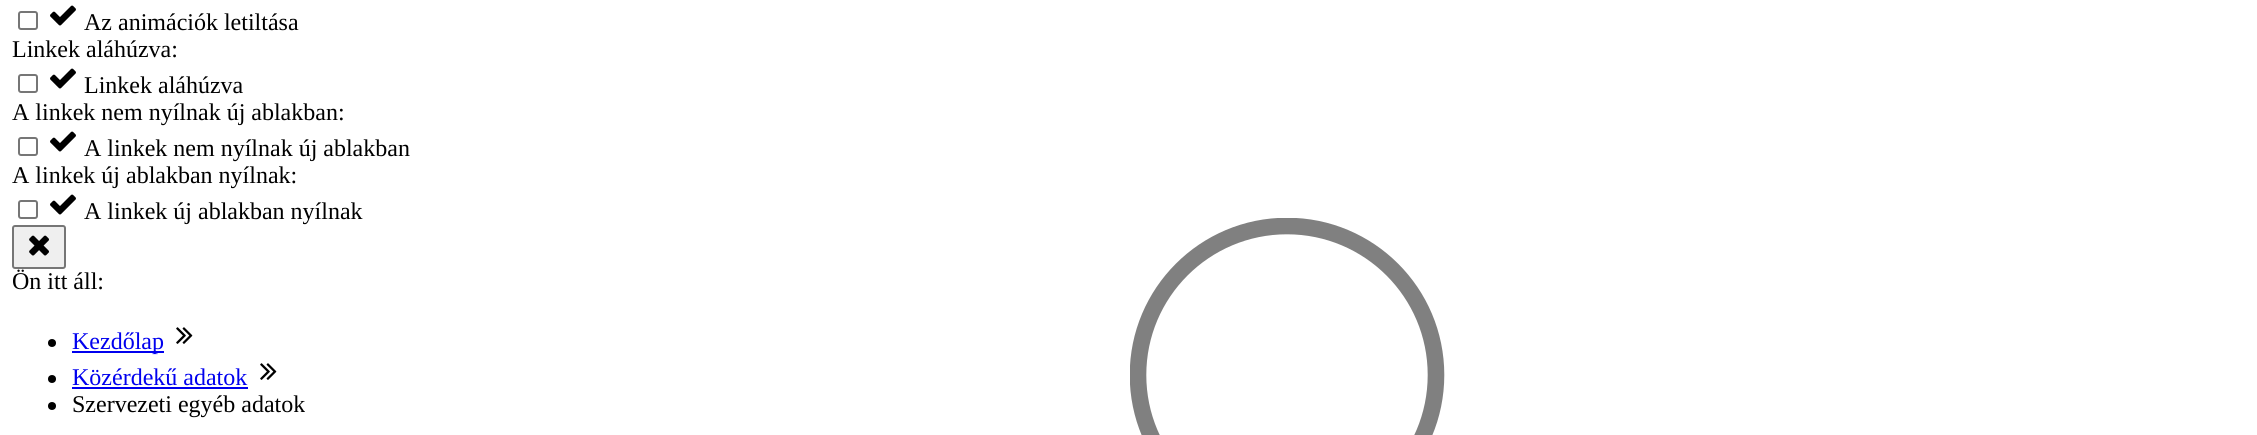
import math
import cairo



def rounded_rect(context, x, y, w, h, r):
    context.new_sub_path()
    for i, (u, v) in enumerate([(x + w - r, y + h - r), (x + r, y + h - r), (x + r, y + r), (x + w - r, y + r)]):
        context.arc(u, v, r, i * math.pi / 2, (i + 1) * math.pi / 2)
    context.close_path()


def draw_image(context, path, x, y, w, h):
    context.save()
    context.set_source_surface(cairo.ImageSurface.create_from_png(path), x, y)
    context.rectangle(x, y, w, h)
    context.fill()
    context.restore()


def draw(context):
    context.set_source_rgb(1, 1, 1)
    context.paint()
    rounded_rect(context, 19, 12, 18, 17, 2)
    context.set_source_rgb(118 / 255, 118 / 255, 118 / 255)
    context.stroke()
    draw_image(context, "images/1.png", 50, 5, 26, 21)
    rounded_rect(context, 19, 75, 18, 17, 2)
    context.stroke()
    draw_image(context, "images/1.png", 50, 68, 26, 21)
    rounded_rect(context, 19, 138, 18, 17, 2)
    context.stroke()
    draw_image(context, "images/1.png", 50, 131, 26, 21)
    rounded_rect(context, 19, 201, 18, 17, 2)
    context.stroke()
    draw_image(context, "images/1.png", 50, 194, 26, 21)
    context.set_source_rgb(239 / 255, 239 / 255, 239 / 255)
    rounded_rect(context, 13, 226, 52, 42, 2)
    context.fill_preserve()
    context.set_source_rgb(118 / 255, 118 / 255, 118 / 255)
    context.stroke()
    draw_image(context, "images/2.png", 29, 235, 20, 21)
    context.set_source_rgb(0, 0, 0)
    context.arc(52, 343, 4, 0, 2 * math.pi)
    context.fill()
    context.set_source_rgb(0, 0, 238 / 255)
    context.rectangle(72, 351, 92, 2)
    context.fill()
    draw_image(context, "images/3.png", 176, 327, 17, 17)
    context.set_source_rgb(0, 0, 0)
    context.arc(52, 379, 4, 0, 2 * math.pi)
    context.fill()
    context.set_source_rgb(0, 0, 238 / 255)
    context.rectangle(72, 387, 176, 2)
    context.fill()
    draw_image(context, "images/3.png", 260, 363, 17, 17)
    context.set_source_rgb(0, 0, 0)
    context.arc(52, 406, 4, 0, 2 * math.pi)
    context.fill()
    context.save()
    context.rectangle(1130, 218, 315, 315)
    context.clip()
    context.arc(1287, 375, 149, 0, 2 * math.pi)
    context.set_source_rgb(128 / 255, 128 / 255, 128 / 255)
    context.set_line_width(16.6)
    context.stroke()
    context.restore()
    context.select_font_face("Liberation Serif")
    context.set_font_size(24)
    context.move_to(84, 30)
    context.show_text("Az animációk letiltása")
    context.move_to(12, 57)
    context.show_text("Linkek aláhúzva:")
    context.move_to(84, 93)
    context.show_text("Linkek aláhúzva")
    context.move_to(12, 120)
    context.show_text("A linkek nem nyílnak új ablakban:")
    context.move_to(84, 156)
    context.show_text("A linkek nem nyílnak új ablakban")
    context.move_to(12, 183)
    context.show_text("A linkek új ablakban nyílnak:")
    context.move_to(84, 219)
    context.show_text("A linkek új ablakban nyílnak")
    context.move_to(12, 289)
    context.show_text("Ön itt áll:")
    context.set_source_rgb(0, 0, 238 / 255)
    context.move_to(72, 349)
    context.show_text("Kezdőlap")
    context.move_to(72, 385)
    context.show_text("Közérdekű adatok")
    context.set_source_rgb(0, 0, 0)
    context.move_to(72, 412)
    context.show_text("Szervezeti egyéb adatok")


surface = cairo.ImageSurface(cairo.Format.RGB24, 2257, 435)
context = cairo.Context(surface)
options = cairo.FontOptions()
options.set_hint_metrics(cairo.HintMetrics.OFF)
options.set_hint_style(cairo.HintStyle.NONE)
context.set_font_options(options)
context.set_miter_limit(4)
draw(context)
surface.write_to_png("out.png")
